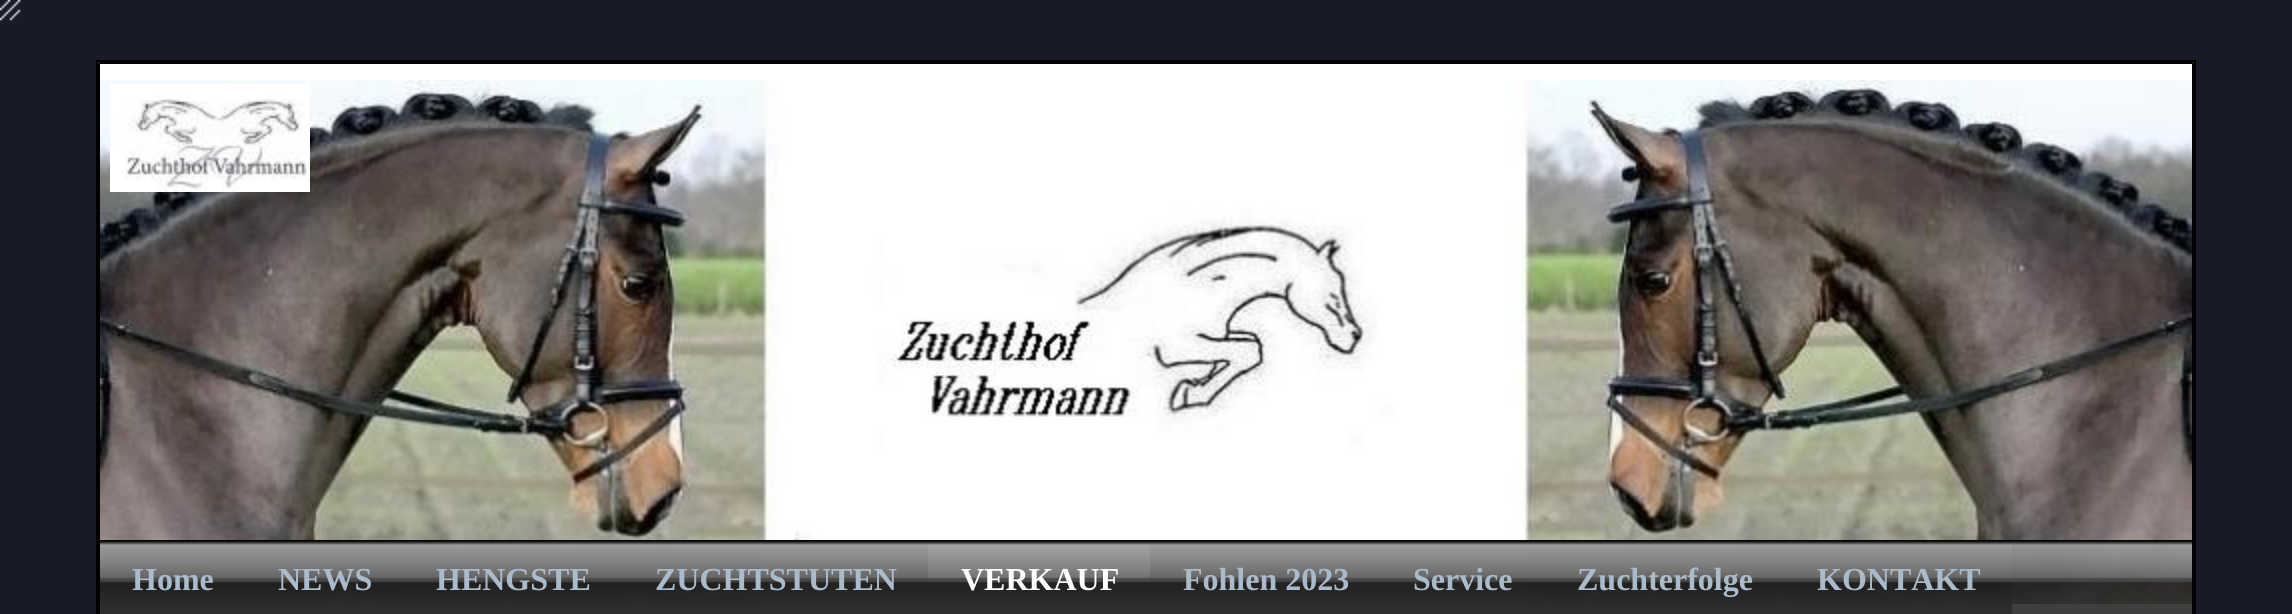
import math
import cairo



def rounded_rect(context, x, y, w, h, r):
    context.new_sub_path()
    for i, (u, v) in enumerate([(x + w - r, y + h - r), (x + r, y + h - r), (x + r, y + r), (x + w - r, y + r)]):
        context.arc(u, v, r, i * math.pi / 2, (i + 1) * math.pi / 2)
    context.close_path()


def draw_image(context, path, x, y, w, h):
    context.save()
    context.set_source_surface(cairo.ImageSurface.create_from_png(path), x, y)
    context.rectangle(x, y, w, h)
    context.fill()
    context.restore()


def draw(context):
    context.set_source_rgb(25 / 255, 26 / 255, 39 / 255)
    context.paint()
    draw_image(context, "images/1.png", 0, 0, 21, 21)
    context.rectangle(97, 61, 2098, 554)
    context.set_source_rgb(0, 0, 0)
    context.stroke()
    context.set_source_rgb(1, 1, 1)
    rounded_rect(context, 98, 62, 2096, 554, 2)
    context.fill()
    draw_image(context, "images/2.png", 100, 80, 2092, 524)
    rounded_rect(context, 99, 63, 2094, 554, 1)
    context.set_source_rgb(0, 0, 0)
    context.stroke()
    draw_image(context, "images/3.png", 110, 84, 200, 108)
    draw_image(context, "images/4.png", 100, 540, 2092, 74)
    draw_image(context, "images/5.png", 100, 540, 146, 74)
    draw_image(context, "images/6.png", 246, 540, 158, 74)
    draw_image(context, "images/7.png", 404, 540, 218, 74)
    draw_image(context, "images/8.png", 622, 540, 306, 74)
    draw_image(context, "images/9.png", 928, 582, 222, 32)
    draw_image(context, "images/10.png", 1150, 540, 232, 74)
    draw_image(context, "images/11.png", 1382, 540, 162, 74)
    draw_image(context, "images/12.png", 1544, 540, 240, 74)
    draw_image(context, "images/13.png", 1784, 540, 228, 74)
    context.select_font_face("Liberation Serif", cairo.FontSlant.NORMAL, cairo.FontWeight.BOLD)
    context.set_font_size(32)
    context.set_source_rgb(170 / 255, 187 / 255, 204 / 255)
    context.move_to(132, 590)
    context.show_text("Home")
    context.move_to(278, 590)
    context.show_text("NEWS")
    context.move_to(436, 590)
    context.show_text("HENGSTE")
    context.move_to(655, 590)
    context.show_text("ZUCHTSTUTEN")
    context.set_source_rgb(1, 1, 1)
    context.move_to(961, 590)
    context.show_text("VERKAUF")
    context.set_source_rgb(170 / 255, 187 / 255, 204 / 255)
    context.move_to(1183, 590)
    context.show_text("Fohlen 2023")
    context.move_to(1413, 590)
    context.show_text("Service")
    context.move_to(1577, 590)
    context.show_text("Zuchterfolge")
    context.move_to(1817, 590)
    context.show_text("KONTAKT")


surface = cairo.ImageSurface(cairo.Format.RGB24, 2292, 614)
context = cairo.Context(surface)
options = cairo.FontOptions()
options.set_hint_metrics(cairo.HintMetrics.OFF)
options.set_hint_style(cairo.HintStyle.NONE)
context.set_font_options(options)
context.set_miter_limit(4)
draw(context)
surface.write_to_png("out.png")
